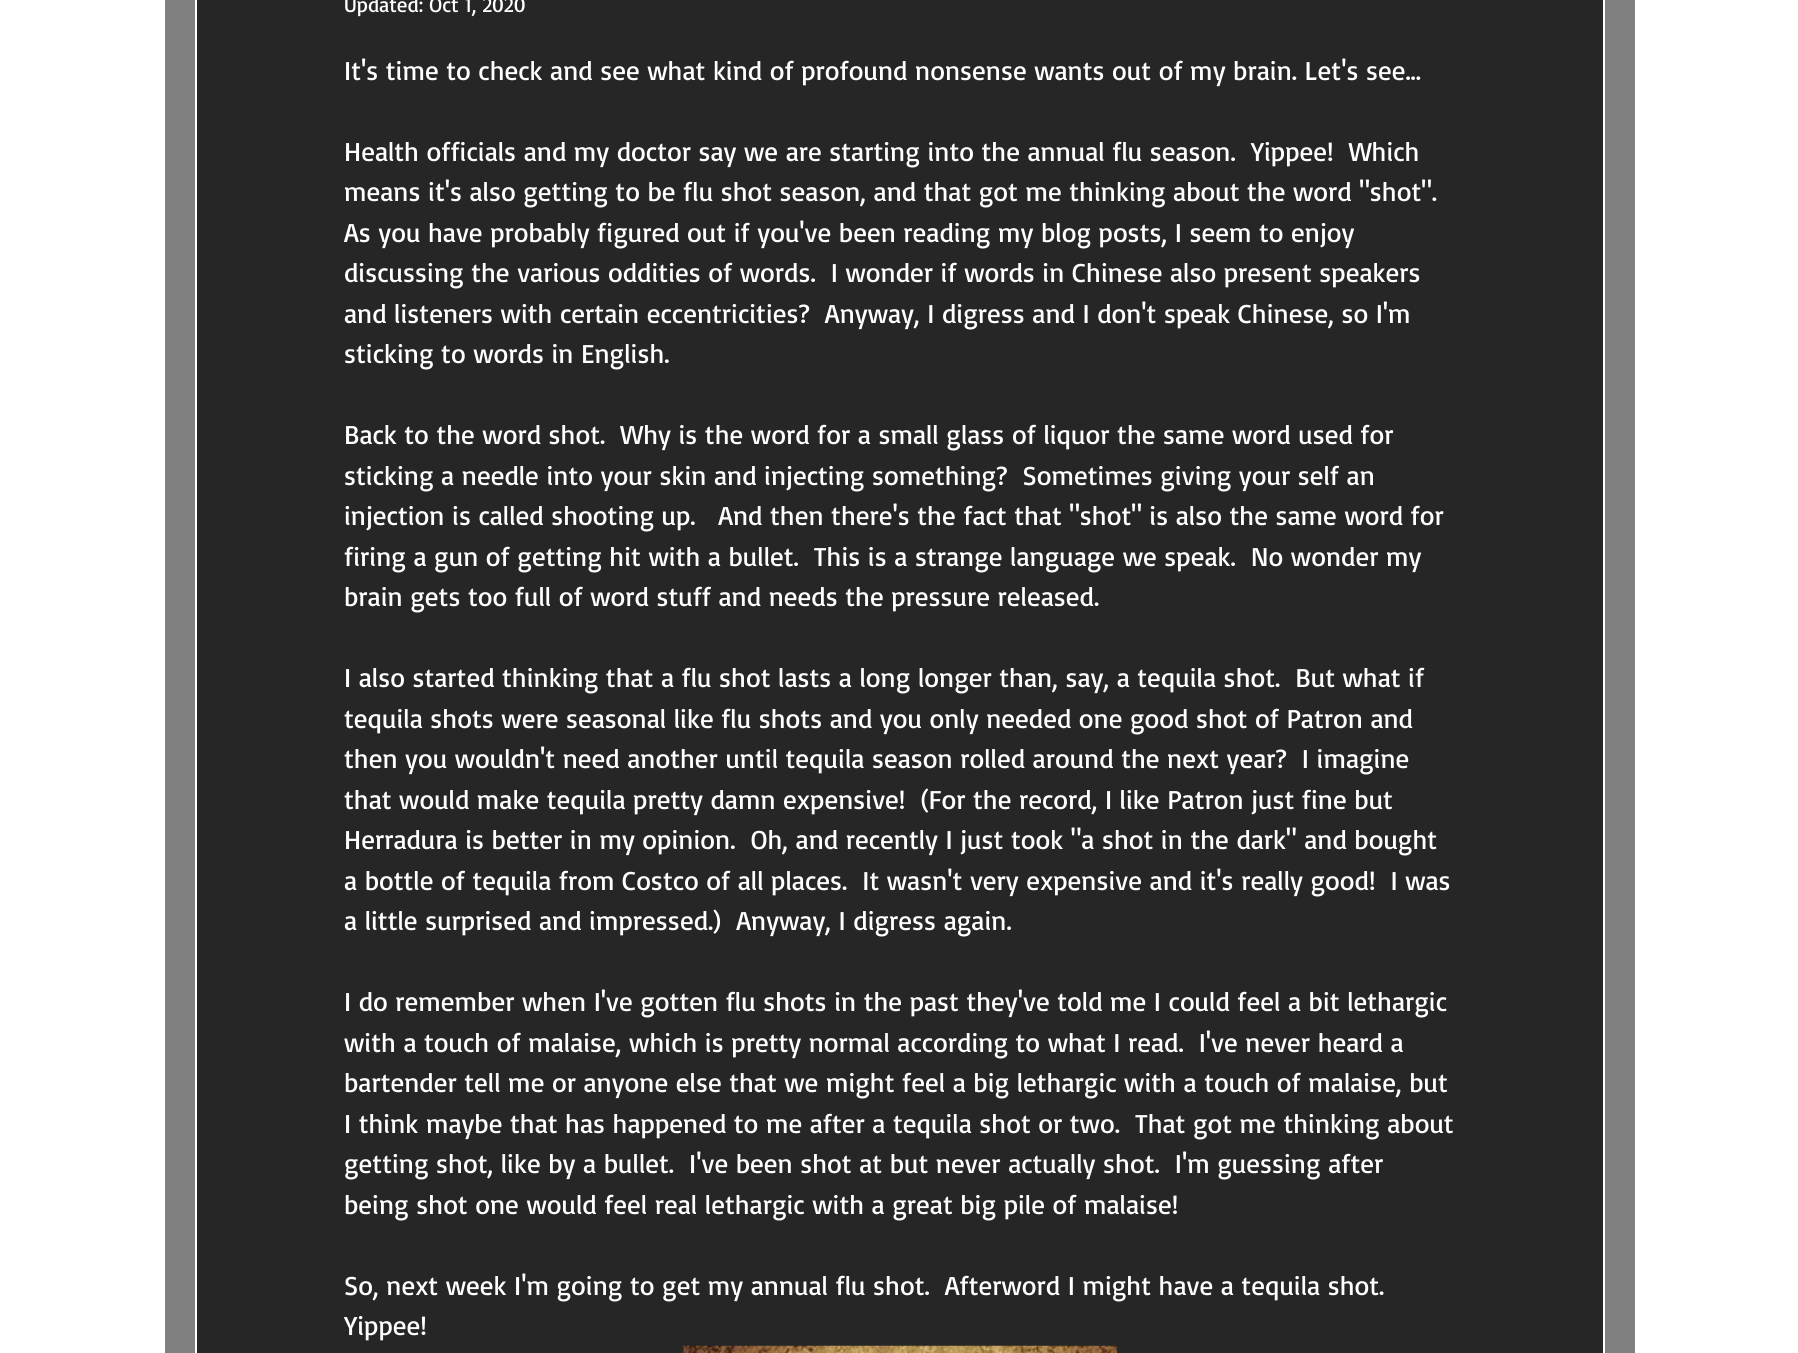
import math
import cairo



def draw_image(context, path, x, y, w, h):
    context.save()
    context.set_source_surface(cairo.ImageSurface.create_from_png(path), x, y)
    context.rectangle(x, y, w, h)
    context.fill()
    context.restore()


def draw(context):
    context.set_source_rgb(1, 1, 1)
    context.paint()
    context.set_source_rgb(128 / 255, 128 / 255, 128 / 255)
    context.rectangle(165, 0, 1470, 1353)
    context.fill()
    context.set_source_rgb(38 / 255, 38 / 255, 38 / 255)
    context.rectangle(196, -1, 1408, 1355)
    context.fill_preserve()
    context.set_source_rgb(1, 1, 1)
    context.stroke()
    draw_image(context, "images/1.png", 682, 1345, 436, 8)
    context.select_font_face("Basic")
    context.set_font_size(21)
    context.move_to(344, 12)
    context.show_text("Updated: Oct 1, 2020")
    context.set_font_size(27)
    context.move_to(344, 80)
    context.show_text("It's time to check and see what kind of profound nonsense wants out of my brain. Let's see...")
    context.move_to(344, 161)
    context.show_text("Health officials and my doctor say we are starting into the annual flu season.  Yippee!  Which")
    context.move_to(344, 201)
    context.show_text("means it's also getting to be flu shot season, and that got me thinking about the word \"shot\".")
    context.move_to(344, 242)
    context.show_text("As you have probably figured out if you've been reading my blog posts, I seem to enjoy")
    context.move_to(344, 282)
    context.show_text("discussing the various oddities of words.  I wonder if words in Chinese also present speakers")
    context.move_to(344, 323)
    context.show_text("and listeners with certain eccentricities?  Anyway, I digress and I don't speak Chinese, so I'm")
    context.move_to(344, 363)
    context.show_text("sticking to words in English.")
    context.move_to(344, 444)
    context.show_text("Back to the word shot.  Why is the word for a small glass of liquor the same word used for")
    context.move_to(344, 485)
    context.show_text("sticking a needle into your skin and injecting something?  Sometimes giving your self an")
    context.move_to(344, 525)
    context.show_text("injection is called shooting up.   And then there's the fact that \"shot\" is also the same word for")
    context.move_to(344, 566)
    context.show_text("firing a gun of getting hit with a bullet.  This is a strange language we speak.  No wonder my")
    context.move_to(344, 606)
    context.show_text("brain gets too full of word stuff and needs the pressure released.")
    context.move_to(344, 687)
    context.show_text("I also started thinking that a flu shot lasts a long longer than, say, a tequila shot.  But what if")
    context.move_to(344, 728)
    context.show_text("tequila shots were seasonal like flu shots and you only needed one good shot of Patron and")
    context.move_to(344, 768)
    context.show_text("then you wouldn't need another until tequila season rolled around the next year?  I imagine")
    context.move_to(344, 809)
    context.show_text("that would make tequila pretty damn expensive!  (For the record, I like Patron just fine but")
    context.move_to(344, 849)
    context.show_text("Herradura is better in my opinion.  Oh, and recently I just took \"a shot in the dark\" and bought")
    context.move_to(344, 890)
    context.show_text("a bottle of tequila from Costco of all places.  It wasn't very expensive and it's really good!  I was")
    context.move_to(344, 930)
    context.show_text("a little surprised and impressed.)  Anyway, I digress again.")
    context.move_to(344, 1011)
    context.show_text("I do remember when I've gotten flu shots in the past they've told me I could feel a bit lethargic")
    context.move_to(344, 1052)
    context.show_text("with a touch of malaise, which is pretty normal according to what I read.  I've never heard a")
    context.move_to(344, 1092)
    context.show_text("bartender tell me or anyone else that we might feel a big lethargic with a touch of malaise, but")
    context.move_to(344, 1133)
    context.show_text("I think maybe that has happened to me after a tequila shot or two.  That got me thinking about")
    context.move_to(344, 1173)
    context.show_text("getting shot, like by a bullet.  I've been shot at but never actually shot.  I'm guessing after")
    context.move_to(344, 1214)
    context.show_text("being shot one would feel real lethargic with a great big pile of malaise!")
    context.move_to(344, 1295)
    context.show_text("So, next week I'm going to get my annual flu shot.  Afterword I might have a tequila shot.")
    context.move_to(344, 1335)
    context.show_text("Yippee!")


surface = cairo.ImageSurface(cairo.Format.RGB24, 1798, 1353)
context = cairo.Context(surface)
options = cairo.FontOptions()
options.set_hint_metrics(cairo.HintMetrics.OFF)
options.set_hint_style(cairo.HintStyle.NONE)
context.set_font_options(options)
context.set_miter_limit(4)
draw(context)
surface.write_to_png("out.png")
